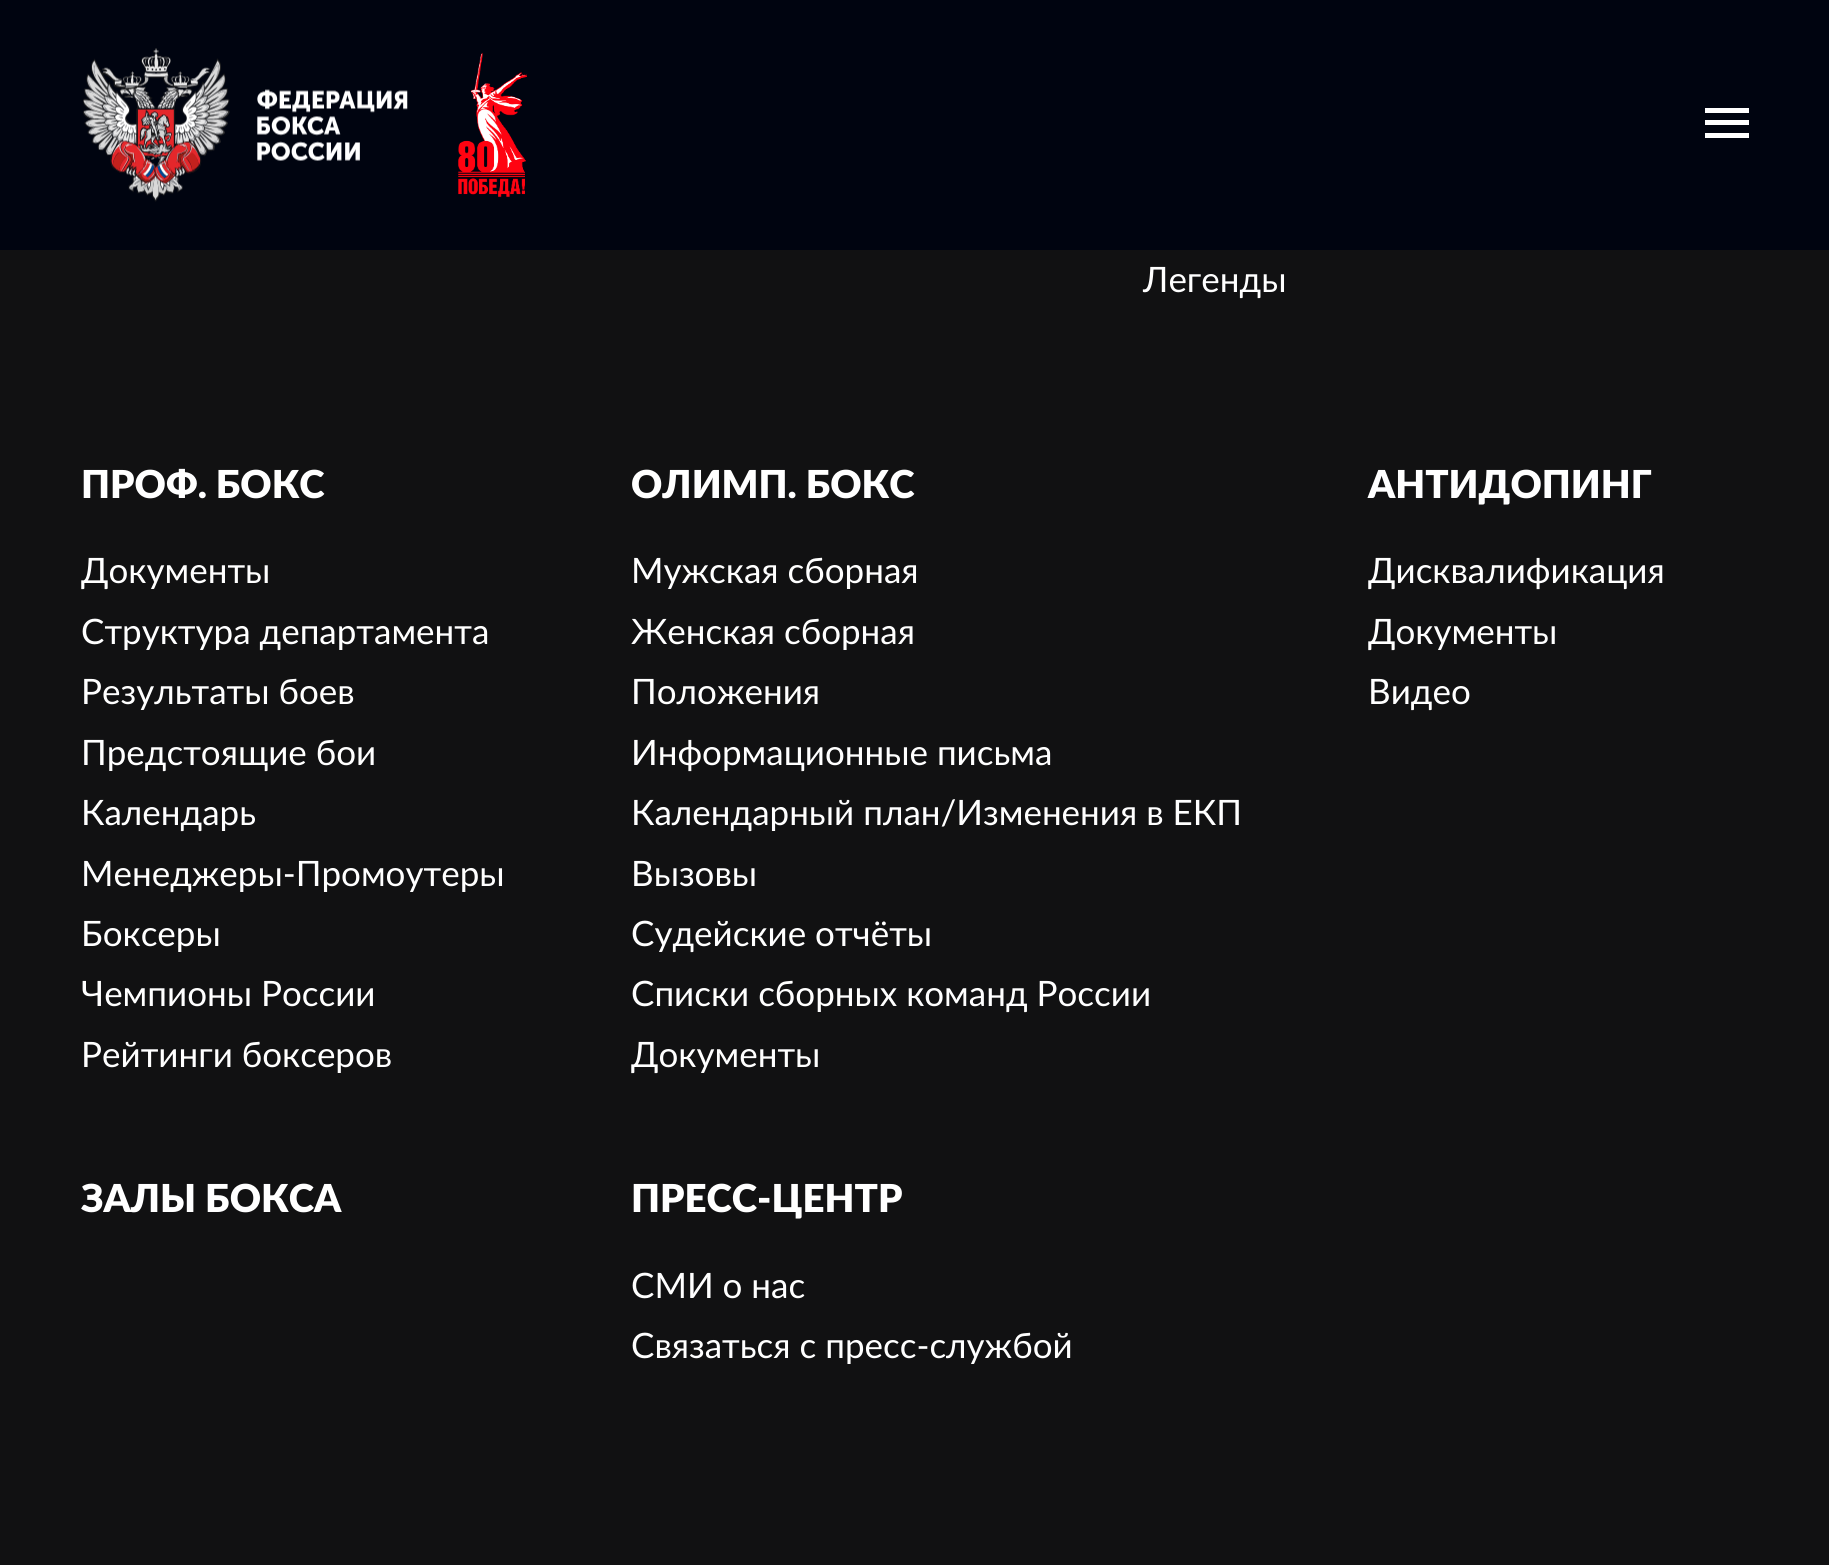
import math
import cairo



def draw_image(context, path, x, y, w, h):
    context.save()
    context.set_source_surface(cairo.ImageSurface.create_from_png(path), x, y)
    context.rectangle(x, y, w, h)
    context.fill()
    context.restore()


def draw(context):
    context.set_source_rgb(17 / 255, 17 / 255, 18 / 255)
    context.paint()
    context.set_source_rgb(0, 4 / 255, 16 / 255)
    context.rectangle(0, 0, 1829, 250)
    context.fill()
    draw_image(context, "images/1.png", 83, 48, 325, 154)
    draw_image(context, "images/2.png", 458, 52, 69, 146)
    context.set_source_rgb(1, 1, 1)
    context.new_path()
    context.move_to(1705, 138)
    context.line_to(1705, 133)
    context.line_to(1749, 133)
    context.line_to(1749, 138)
    context.close_path()
    context.move_to(1705, 125)
    context.line_to(1705, 120)
    context.line_to(1749, 120)
    context.line_to(1749, 125)
    context.close_path()
    context.move_to(1705, 108)
    context.line_to(1749, 108)
    context.line_to(1749, 113)
    context.line_to(1705, 113)
    context.close_path()
    context.fill()
    context.select_font_face("Lato")
    context.set_font_size(35)
    context.move_to(1143, 292)
    context.show_text("Легенды")
    context.select_font_face("Lato Black")
    context.set_font_size(38.5)
    context.move_to(81, 498)
    context.show_text("ПРОФ. БОКС")
    context.select_font_face("Lato")
    context.set_font_size(35)
    context.move_to(81, 583)
    context.show_text("Документы")
    context.move_to(81, 644)
    context.show_text("Структура департамента")
    context.move_to(81, 704)
    context.show_text("Результаты боев")
    context.move_to(81, 765)
    context.show_text("Предстоящие бои")
    context.move_to(81, 825)
    context.show_text("Календарь")
    context.move_to(81, 886)
    context.show_text("Менеджеры-Промоутеры")
    context.move_to(81, 946)
    context.show_text("Боксеры")
    context.move_to(81, 1006)
    context.show_text("Чемпионы России")
    context.move_to(81, 1067)
    context.show_text("Рейтинги боксеров")
    context.select_font_face("Lato Black")
    context.set_font_size(38.5)
    context.move_to(81, 1212)
    context.show_text("ЗАЛЫ БОКСА")
    context.move_to(631, 498)
    context.show_text("ОЛИМП. БОКС")
    context.select_font_face("Lato")
    context.set_font_size(35)
    context.move_to(631, 583)
    context.show_text("Мужская сборная")
    context.move_to(631, 644)
    context.show_text("Женская сборная")
    context.move_to(631, 704)
    context.show_text("Положения")
    context.move_to(631, 765)
    context.show_text("Информационные письма")
    context.move_to(631, 825)
    context.show_text("Календарный план/Изменения в ЕКП")
    context.move_to(631, 886)
    context.show_text("Вызовы")
    context.move_to(631, 946)
    context.show_text("Судейские отчёты")
    context.move_to(631, 1006)
    context.show_text("Списки сборных команд России")
    context.move_to(631, 1067)
    context.show_text("Документы")
    context.select_font_face("Lato Black")
    context.set_font_size(38.5)
    context.move_to(631, 1212)
    context.show_text("ПРЕСС-ЦЕНТР")
    context.select_font_face("Lato")
    context.set_font_size(35)
    context.move_to(631, 1298)
    context.show_text("СМИ о нас")
    context.move_to(631, 1358)
    context.show_text("Связаться с пресс-службой")
    context.select_font_face("Lato Black")
    context.set_font_size(38.5)
    context.move_to(1368, 498)
    context.show_text("АНТИДОПИНГ")
    context.select_font_face("Lato")
    context.set_font_size(35)
    context.move_to(1368, 583)
    context.show_text("Дисквалификация")
    context.move_to(1368, 644)
    context.show_text("Документы")
    context.move_to(1368, 704)
    context.show_text("Видео")


surface = cairo.ImageSurface(cairo.Format.RGB24, 1829, 1565)
context = cairo.Context(surface)
options = cairo.FontOptions()
options.set_hint_metrics(cairo.HintMetrics.OFF)
options.set_hint_style(cairo.HintStyle.NONE)
context.set_font_options(options)
context.set_miter_limit(4)
draw(context)
surface.write_to_png("out.png")
